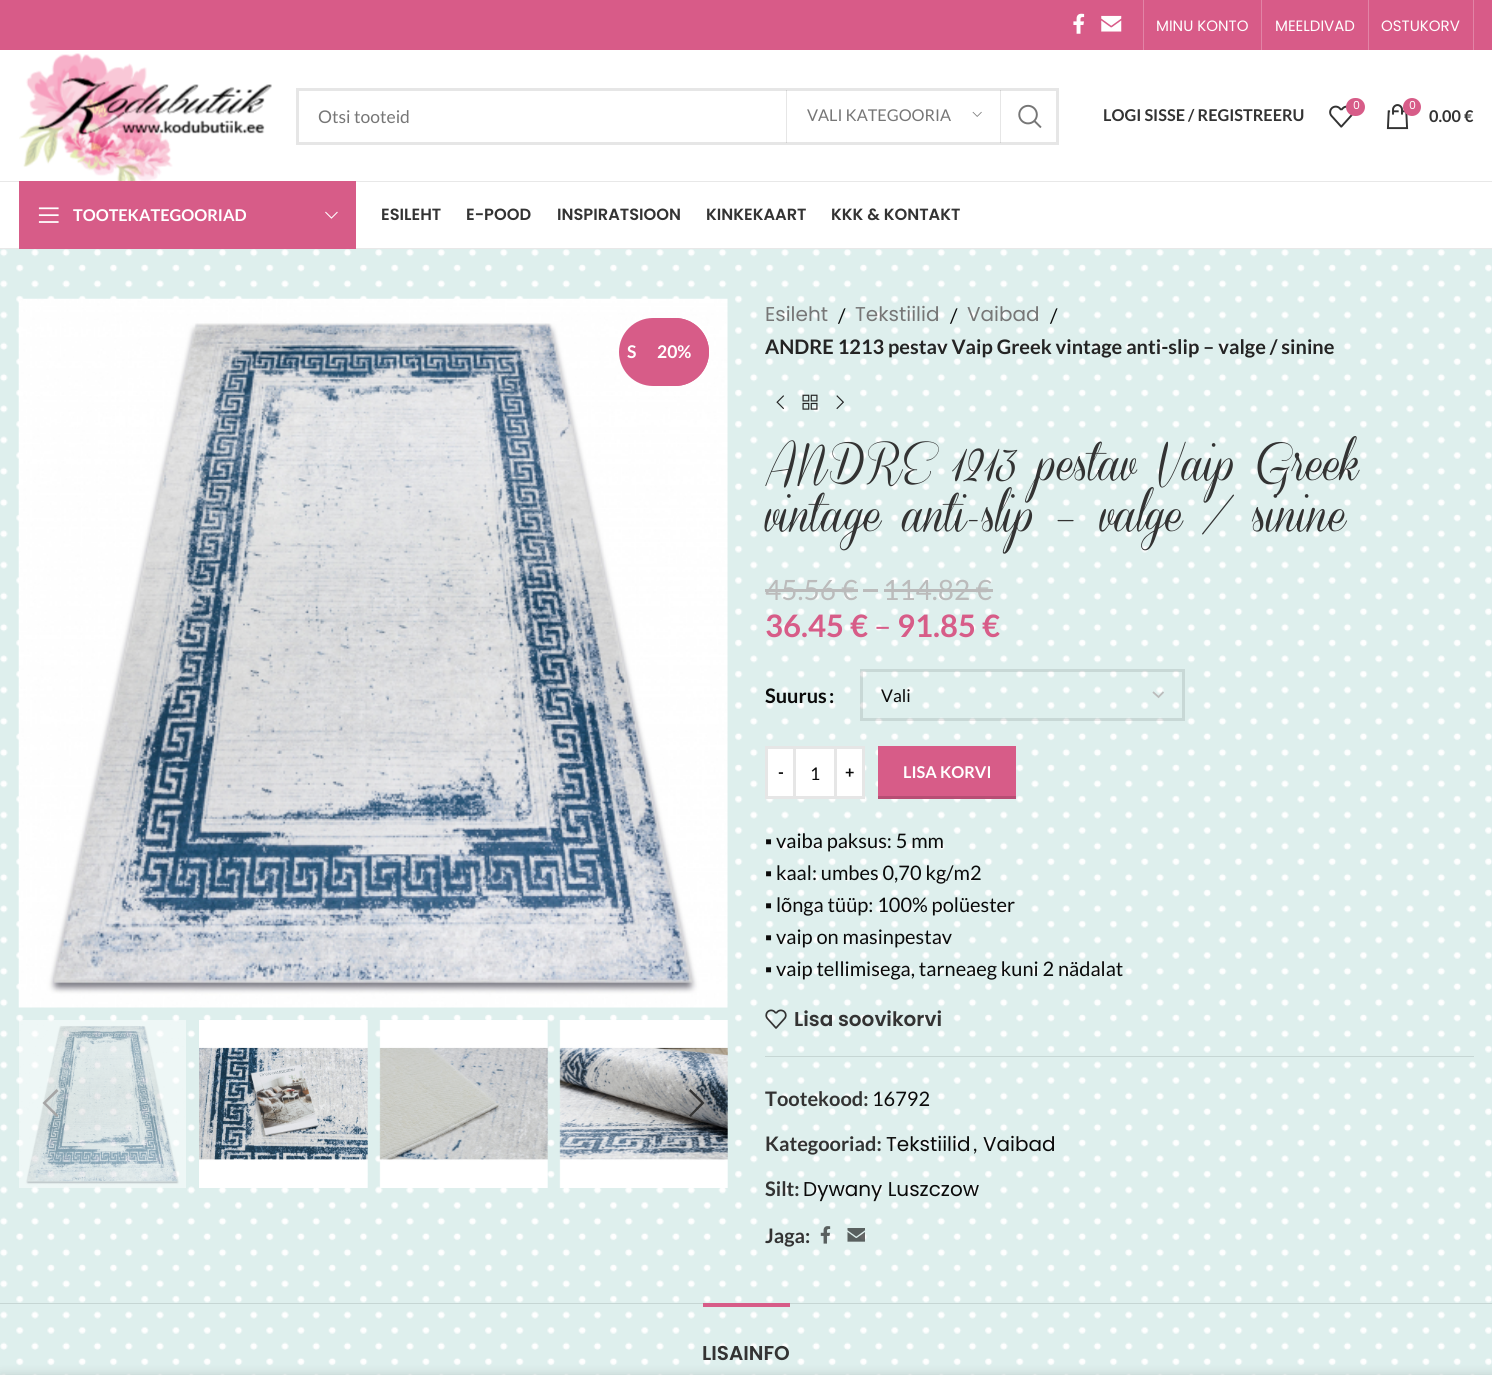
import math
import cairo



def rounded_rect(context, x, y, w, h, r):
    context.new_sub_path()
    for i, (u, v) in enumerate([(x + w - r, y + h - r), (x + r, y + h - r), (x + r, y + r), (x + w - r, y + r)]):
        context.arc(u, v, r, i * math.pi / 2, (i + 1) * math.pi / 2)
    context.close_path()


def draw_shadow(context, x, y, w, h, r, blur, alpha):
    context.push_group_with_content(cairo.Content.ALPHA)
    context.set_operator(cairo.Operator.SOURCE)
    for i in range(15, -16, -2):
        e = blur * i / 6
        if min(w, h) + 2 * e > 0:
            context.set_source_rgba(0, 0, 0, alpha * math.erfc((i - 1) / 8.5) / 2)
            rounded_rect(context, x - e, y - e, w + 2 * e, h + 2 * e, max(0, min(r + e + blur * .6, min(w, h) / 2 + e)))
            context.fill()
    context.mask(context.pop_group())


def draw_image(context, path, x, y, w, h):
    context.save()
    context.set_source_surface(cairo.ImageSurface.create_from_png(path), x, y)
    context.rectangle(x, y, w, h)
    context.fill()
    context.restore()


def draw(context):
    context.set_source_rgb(1, 1, 1)
    context.paint()
    context.set_source_rgb(216 / 255, 91 / 255, 136 / 255)
    context.rectangle(0, 0, 1492, 50)
    context.fill()
    draw_image(context, "images/1.png", 1073, 13, 12, 21)
    draw_image(context, "images/2.png", 1101, 15, 21, 17)
    context.set_source_rgb(226 / 255, 132 / 255, 166 / 255)
    context.rectangle(1143, 0, 1, 50)
    context.fill()
    context.rectangle(1261, 0, 1, 50)
    context.fill()
    context.rectangle(1368, 0, 1, 50)
    context.fill()
    context.rectangle(1473, 0, 1, 50)
    context.fill()
    context.set_source_rgb(232 / 255, 232 / 255, 232 / 255)
    context.rectangle(0, 181, 1492, 1)
    context.fill()
    draw_image(context, "images/3.png", 19, 53, 253, 128)
    context.rectangle(297.5, 89.5, 760, 54)
    context.set_source_rgb(230 / 255, 230 / 255, 230 / 255)
    context.set_line_width(3)
    context.stroke()
    context.set_source_rgba(0, 0, 0, 0.1)
    context.rectangle(1000, 90, 1, 53)
    context.fill()
    context.rectangle(786, 90, 1, 53)
    context.fill()
    draw_image(context, "images/4.png", 972, 111, 10, 6)
    draw_image(context, "images/5.png", 1018, 104, 24, 25)
    draw_image(context, "images/6.png", 1329, 105, 24, 23)
    context.set_source_rgb(215 / 255, 92 / 255, 136 / 255)
    rounded_rect(context, 1346, 98, 19, 18, 9)
    context.fill()
    draw_image(context, "images/7.png", 1386, 104, 23, 26)
    context.arc(1412, 107, 9, 0, 2 * math.pi)
    context.fill()
    context.set_source_rgb(232 / 255, 232 / 255, 232 / 255)
    context.rectangle(0, 248, 1492, 1)
    context.fill()
    context.set_source_rgb(215 / 255, 92 / 255, 136 / 255)
    context.rectangle(19, 181, 337, 68)
    context.fill()
    draw_image(context, "images/8.png", 38, 207, 21, 16)
    draw_image(context, "images/9.png", 325, 211, 13, 8)
    draw_image(context, "images/10.png", 0, 249, 1492, 1126)
    draw_image(context, "images/11.png", 18, 298, 710, 710)
    rounded_rect(context, 619, 318, 90, 68, 34)
    context.fill()
    rounded_rect(context, 640, 318, 69, 68, 34)
    context.fill()
    draw_image(context, "images/12.png", 19, 1020, 167, 168)
    draw_image(context, "images/13.png", 199, 1020, 169, 168)
    draw_image(context, "images/14.png", 379, 1020, 169, 168)
    draw_image(context, "images/15.png", 559, 1020, 169, 168)
    context.set_source_rgb(165 / 255, 165 / 255, 165 / 255)
    context.new_path()
    context.move_to(58.5, 1091)
    context.line_to(56.5, 1089)
    context.line_to(42.5, 1103)
    context.line_to(56.5, 1117)
    context.line_to(58.5, 1115.5)
    context.line_to(46, 1103)
    context.close_path()
    context.fill()
    context.set_source_rgb(51 / 255, 51 / 255, 51 / 255)
    context.new_path()
    context.move_to(689, 1091)
    context.line_to(701, 1103)
    context.line_to(689, 1115.5)
    context.line_to(690.5, 1117)
    context.line_to(704.5, 1103)
    context.line_to(690.5, 1089)
    context.close_path()
    context.fill()
    draw_image(context, "images/16.png", 776, 395, 8, 15)
    draw_image(context, "images/17.png", 802, 394, 16, 16)
    draw_image(context, "images/18.png", 836, 395, 8, 15)
    context.set_source_rgb(187 / 255, 187 / 255, 187 / 255)
    context.rectangle(765, 589, 93, 3)
    context.fill()
    context.rectangle(863, 589, 15, 3)
    context.fill()
    context.rectangle(884, 589, 109, 3)
    context.fill()
    context.new_path()
    context.move_to(1153, 692)
    context.line_to(1158.5, 697)
    context.line_to(1163.5, 692)
    context.set_line_width(1.8)
    context.stroke()
    context.rectangle(861.5, 670.5, 322, 49)
    context.set_source_rgba(0, 0, 0, 0.1)
    context.set_line_width(3)
    context.stroke()
    context.set_source_rgb(1, 1, 1)
    context.rectangle(768, 749, 94, 47)
    context.fill()
    context.rectangle(766.5, 747.5, 28, 50)
    context.set_source_rgb(230 / 255, 230 / 255, 230 / 255)
    context.stroke()
    context.rectangle(796, 746, 38, 3)
    context.fill()
    context.rectangle(796, 796, 38, 3)
    context.fill()
    context.rectangle(835.5, 747.5, 28, 50)
    context.stroke()
    context.set_source_rgb(215 / 255, 92 / 255, 136 / 255)
    context.rectangle(878, 746, 138, 50)
    context.fill()
    context.set_source_rgb(183 / 255, 78 / 255, 116 / 255)
    context.rectangle(878, 796, 138, 3)
    context.fill()
    draw_image(context, "images/19.png", 765, 1009, 22, 20)
    context.set_source_rgb(198 / 255, 214 / 255, 212 / 255)
    context.rectangle(765, 1056, 709, 1)
    context.fill()
    draw_image(context, "images/20.png", 820, 1226, 11, 18)
    draw_image(context, "images/21.png", 847, 1228, 18, 14)
    context.rectangle(0, 1303, 1492, 1)
    context.fill()
    context.set_source_rgb(215 / 255, 92 / 255, 136 / 255)
    context.rectangle(703, 1303, 87, 4)
    context.fill()
    context.set_source_rgb(0, 0, 0)
    draw_shadow(context, 0, 1375, 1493, 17, 0, 5.5, 0.14)
    context.select_font_face("Poppins")
    context.set_font_size(15)
    context.set_source_rgb(1, 1, 1)
    context.move_to(1156, 31)
    context.show_text("MINU KONTO")
    context.move_to(1275, 31)
    context.show_text("MEELDIVAD")
    context.move_to(1381, 31)
    context.show_text("OSTUKORV")
    context.select_font_face("Lato")
    context.set_font_size(17.5)
    context.set_source_rgb(118 / 255, 118 / 255, 118 / 255)
    context.move_to(318, 123)
    context.show_text("Otsi tooteid")
    context.set_font_size(16.25)
    context.move_to(807, 121)
    context.show_text("VALI KATEGOORIA")
    context.select_font_face("Lato", cairo.FontSlant.NORMAL, cairo.FontWeight.BOLD)
    context.set_source_rgb(51 / 255, 51 / 255, 51 / 255)
    context.move_to(1103, 121)
    context.show_text("LOGI SISSE / REGISTREERU")
    context.select_font_face("Poppins")
    context.set_font_size(11)
    context.set_source_rgb(1, 1, 1)
    context.move_to(1353, 109)
    context.show_text("0")
    context.move_to(1409, 109)
    context.show_text("0")
    context.select_font_face("Lato", cairo.FontSlant.NORMAL, cairo.FontWeight.BOLD)
    context.set_font_size(16.25)
    context.set_source_rgb(51 / 255, 51 / 255, 51 / 255)
    context.move_to(1429, 122)
    context.show_text("0.00 €")
    context.set_source_rgb(1, 1, 1)
    context.move_to(73, 221)
    context.show_text("TOOTEKATEGOORIAD")
    context.select_font_face("Poppins SemiBold")
    context.set_source_rgb(51 / 255, 51 / 255, 51 / 255)
    context.move_to(381, 220)
    context.show_text("ESILEHT")
    context.move_to(466, 220)
    context.show_text("E-POOD")
    context.move_to(557, 220)
    context.show_text("INSPIRATSIOON")
    context.move_to(706, 220)
    context.show_text("KINKEKAART")
    context.move_to(831, 220)
    context.show_text("KKK & KONTAKT")
    context.select_font_face("Lato", cairo.FontSlant.NORMAL, cairo.FontWeight.BOLD)
    context.set_font_size(17.5)
    context.set_source_rgb(1, 1, 1)
    context.move_to(627, 358)
    context.show_text("S")
    context.move_to(657, 358)
    context.show_text("20%")
    context.select_font_face("Poppins")
    context.set_font_size(20)
    context.set_source_rgb(118 / 255, 118 / 255, 118 / 255)
    context.move_to(765, 321)
    context.show_text("Esileht")
    context.select_font_face("Lato")
    context.set_source_rgb(10 / 255, 10 / 255, 10 / 255)
    context.move_to(838, 323)
    context.show_text("/")
    context.select_font_face("Poppins")
    context.set_source_rgb(118 / 255, 118 / 255, 118 / 255)
    context.move_to(855, 321)
    context.show_text("Tekstiilid")
    context.select_font_face("Lato")
    context.set_source_rgb(10 / 255, 10 / 255, 10 / 255)
    context.move_to(950, 323)
    context.show_text("/")
    context.select_font_face("Poppins")
    context.set_source_rgb(118 / 255, 118 / 255, 118 / 255)
    context.move_to(967, 321)
    context.show_text("Vaibad")
    context.select_font_face("Lato")
    context.set_source_rgb(10 / 255, 10 / 255, 10 / 255)
    context.move_to(1050, 323)
    context.show_text("/")
    context.select_font_face("Lato", cairo.FontSlant.NORMAL, cairo.FontWeight.BOLD)
    context.set_source_rgb(36 / 255, 36 / 255, 36 / 255)
    context.move_to(765, 354)
    context.show_text("ANDRE 1213 pestav Vaip Greek vintage anti-slip – valge / sinine")
    context.select_font_face("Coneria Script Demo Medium")
    context.set_font_size(42.5)
    context.set_source_rgb(51 / 255, 51 / 255, 51 / 255)
    context.move_to(765, 480)
    context.show_text("ANDRE 1213 pestav Vaip Greek")
    context.move_to(765, 531)
    context.show_text("vintage anti-slip – valge / sinine")
    context.select_font_face("Lato")
    context.set_font_size(28)
    context.set_source_rgb(187 / 255, 187 / 255, 187 / 255)
    context.move_to(765, 600)
    context.show_text("45.56 €")
    context.move_to(883, 600)
    context.show_text("114.82 €")
    context.select_font_face("Lato", cairo.FontSlant.NORMAL, cairo.FontWeight.BOLD)
    context.set_font_size(31)
    context.set_source_rgb(215 / 255, 92 / 255, 136 / 255)
    context.move_to(765, 637)
    context.show_text("36.45 €")
    context.select_font_face("Lato")
    context.move_to(874, 637)
    context.show_text("–")
    context.select_font_face("Lato", cairo.FontSlant.NORMAL, cairo.FontWeight.BOLD)
    context.move_to(897, 637)
    context.show_text("91.85 €")
    context.set_font_size(20)
    context.set_source_rgb(10 / 255, 10 / 255, 10 / 255)
    context.move_to(765, 703)
    context.show_text("Suurus")
    context.move_to(829, 703)
    context.show_text(":")
    context.select_font_face("Lato")
    context.set_font_size(17.5)
    context.move_to(881, 702)
    context.show_text("Vali")
    context.select_font_face("Lato", cairo.FontSlant.NORMAL, cairo.FontWeight.BOLD)
    context.set_font_size(16.25)
    context.move_to(778, 778)
    context.show_text("-")
    context.select_font_face("Lato")
    context.set_font_size(17.5)
    context.move_to(810, 780)
    context.show_text("1")
    context.select_font_face("Lato", cairo.FontSlant.NORMAL, cairo.FontWeight.BOLD)
    context.set_font_size(16.25)
    context.move_to(845, 778)
    context.show_text("+")
    context.set_source_rgb(1, 1, 1)
    context.move_to(903, 778)
    context.show_text("LISA KORVI")
    context.select_font_face("Liberation Sans")
    context.set_font_size(20)
    context.set_source_rgb(10 / 255, 10 / 255, 10 / 255)
    context.move_to(765, 848)
    context.show_text("▪")
    context.select_font_face("Lato")
    context.move_to(776, 848)
    context.show_text("vaiba paksus: 5 mm")
    context.select_font_face("Liberation Sans")
    context.move_to(765, 880)
    context.show_text("▪")
    context.select_font_face("Lato")
    context.move_to(776, 880)
    context.show_text("kaal: umbes 0,70 kg/m2")
    context.select_font_face("Liberation Sans")
    context.move_to(765, 912)
    context.show_text("▪")
    context.select_font_face("Lato")
    context.move_to(776, 912)
    context.show_text("lõnga tüüp: 100% polüester")
    context.select_font_face("Liberation Sans")
    context.move_to(765, 944)
    context.show_text("▪")
    context.select_font_face("Lato")
    context.move_to(776, 944)
    context.show_text("vaip on masinpestav")
    context.select_font_face("Liberation Sans")
    context.move_to(765, 976)
    context.show_text("▪")
    context.select_font_face("Lato")
    context.move_to(776, 976)
    context.show_text("vaip tellimisega, tarneaeg kuni 2 nädalat")
    context.select_font_face("Poppins SemiBold")
    context.set_source_rgb(51 / 255, 51 / 255, 51 / 255)
    context.move_to(794, 1026)
    context.show_text("Lisa soovikorvi")
    context.select_font_face("Lato", cairo.FontSlant.NORMAL, cairo.FontWeight.BOLD)
    context.move_to(765, 1106)
    context.show_text("Tootekood:")
    context.select_font_face("Lato")
    context.set_source_rgb(10 / 255, 10 / 255, 10 / 255)
    context.move_to(872, 1106)
    context.show_text("16792")
    context.select_font_face("Lato", cairo.FontSlant.NORMAL, cairo.FontWeight.BOLD)
    context.set_source_rgb(51 / 255, 51 / 255, 51 / 255)
    context.move_to(765, 1151)
    context.show_text("Kategooriad:")
    context.select_font_face("Poppins")
    context.set_source_rgb(10 / 255, 10 / 255, 10 / 255)
    context.move_to(886, 1151)
    context.show_text("Tekstiilid")
    context.select_font_face("Lato")
    context.move_to(973, 1151)
    context.show_text(",")
    context.select_font_face("Poppins")
    context.move_to(983, 1151)
    context.show_text("Vaibad")
    context.select_font_face("Lato", cairo.FontSlant.NORMAL, cairo.FontWeight.BOLD)
    context.set_source_rgb(51 / 255, 51 / 255, 51 / 255)
    context.move_to(765, 1196)
    context.show_text("Silt:")
    context.select_font_face("Poppins")
    context.set_source_rgb(10 / 255, 10 / 255, 10 / 255)
    context.move_to(803, 1196)
    context.show_text("Dywany Luszczow")
    context.select_font_face("Lato", cairo.FontSlant.NORMAL, cairo.FontWeight.BOLD)
    context.set_source_rgb(51 / 255, 51 / 255, 51 / 255)
    context.move_to(765, 1243)
    context.show_text("Jaga:")
    context.select_font_face("Poppins SemiBold")
    context.move_to(702, 1360)
    context.show_text("LISAINFO")


surface = cairo.ImageSurface(cairo.Format.RGB24, 1492, 1375)
context = cairo.Context(surface)
options = cairo.FontOptions()
options.set_hint_metrics(cairo.HintMetrics.OFF)
options.set_hint_style(cairo.HintStyle.NONE)
context.set_font_options(options)
context.set_miter_limit(4)
draw(context)
surface.write_to_png("out.png")
